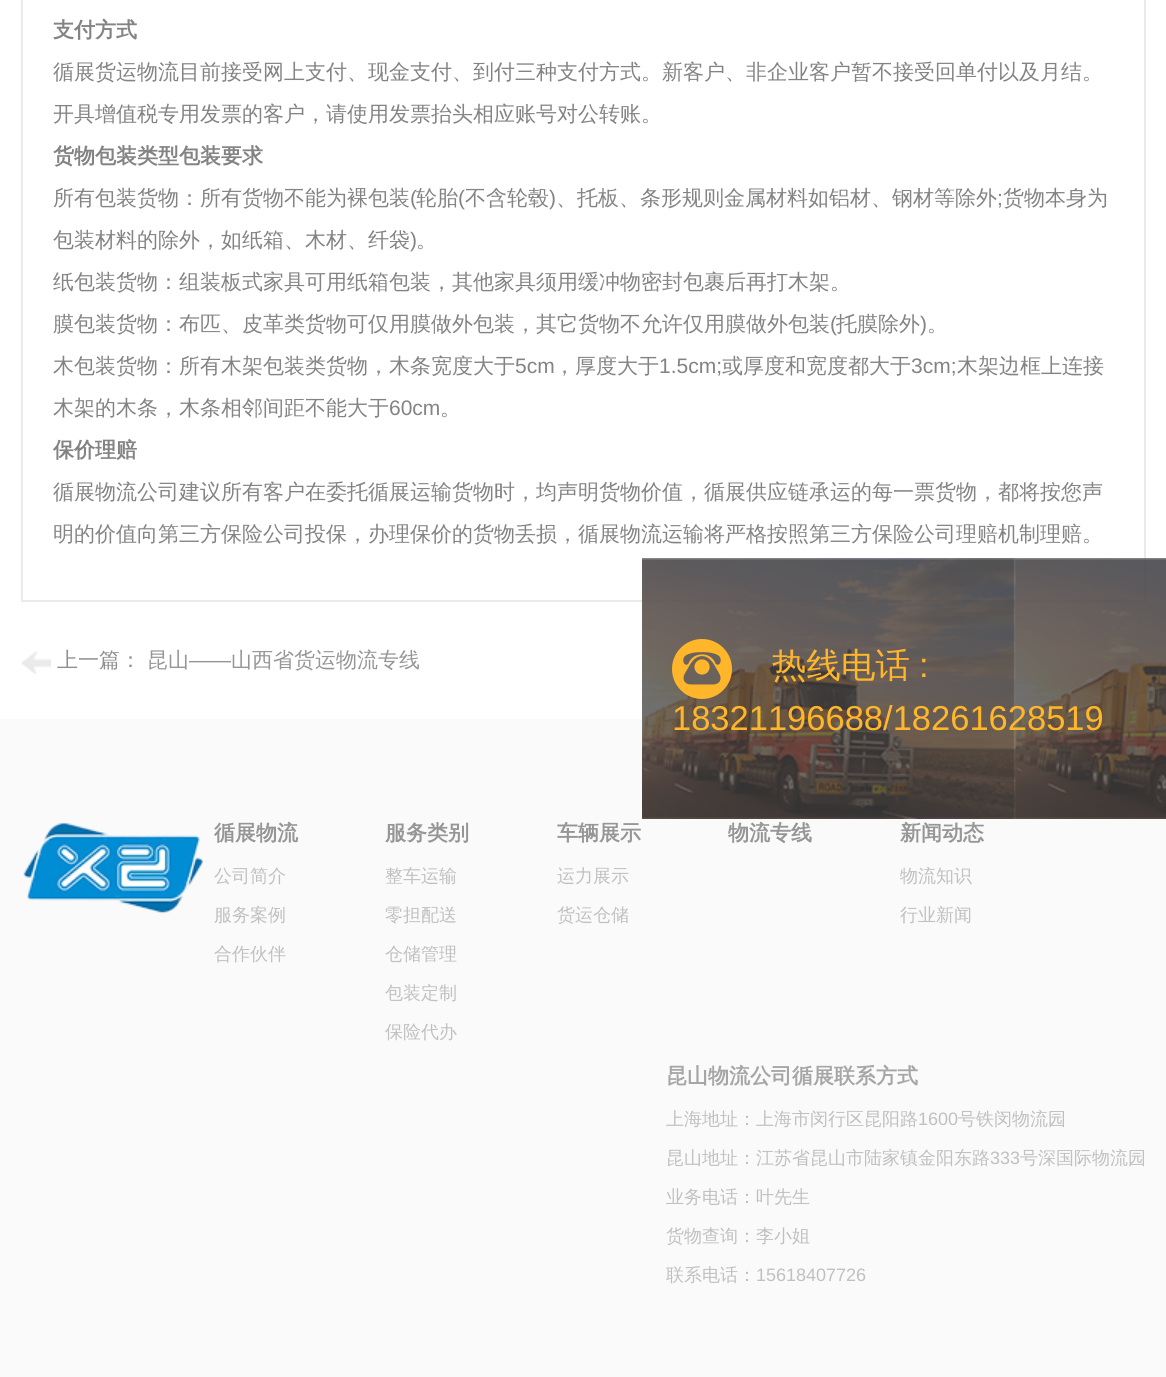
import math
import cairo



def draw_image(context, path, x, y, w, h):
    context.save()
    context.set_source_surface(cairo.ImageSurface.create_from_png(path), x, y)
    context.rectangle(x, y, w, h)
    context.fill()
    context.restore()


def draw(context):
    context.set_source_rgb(1, 1, 1)
    context.paint()
    context.rectangle(22, -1, 1123, 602)
    context.set_source_rgb(234 / 255, 234 / 255, 234 / 255)
    context.stroke()
    draw_image(context, "images/1.png", 21, 651, 30, 23)
    draw_image(context, "images/2.png", 1116, 649, 30, 25)
    context.set_source_rgb(250 / 255, 250 / 255, 250 / 255)
    context.rectangle(0, 719, 1166, 658)
    context.fill()
    draw_image(context, "images/3.png", 642, 558, 524, 261)
    context.set_source_rgb(1, 182 / 255, 42 / 255)
    context.arc(702, 669, 30, 0, 2 * math.pi)
    context.fill()
    draw_image(context, "images/4.png", 683, 652, 38, 33)
    draw_image(context, "images/5.png", 23, 822, 180, 92)
    context.select_font_face("WenQuanYi Zen Hei", cairo.FontSlant.NORMAL, cairo.FontWeight.BOLD)
    context.set_font_size(21)
    context.set_source_rgb(131 / 255, 131 / 255, 131 / 255)
    context.move_to(53, 37)
    context.show_text("支付方式")
    context.select_font_face("WenQuanYi Zen Hei Medium")
    context.move_to(53, 79)
    context.show_text("循展货运物流目前接受网上支付、现金支付、到付三种支付方式。新客户、非企业客户暂不接受回单付以及月结。")
    context.move_to(53, 121)
    context.show_text("开具增值税专用发票的客户，请使用发票抬头相应账号对公转账。")
    context.select_font_face("WenQuanYi Zen Hei", cairo.FontSlant.NORMAL, cairo.FontWeight.BOLD)
    context.move_to(53, 163)
    context.show_text("货物包装类型包装要求")
    context.select_font_face("WenQuanYi Zen Hei Medium")
    context.move_to(53, 205)
    context.show_text("所有包装货物：所有货物不能为裸包装")
    context.select_font_face("Liberation Sans")
    context.move_to(410, 205)
    context.show_text("(")
    context.select_font_face("WenQuanYi Zen Hei Medium")
    context.move_to(416, 205)
    context.show_text("轮胎")
    context.select_font_face("Liberation Sans")
    context.move_to(458, 205)
    context.show_text("(")
    context.select_font_face("WenQuanYi Zen Hei Medium")
    context.move_to(465, 205)
    context.show_text("不含轮毂")
    context.select_font_face("Liberation Sans")
    context.move_to(549, 205)
    context.show_text(")")
    context.select_font_face("WenQuanYi Zen Hei Medium")
    context.move_to(556, 205)
    context.show_text("、托板、条形规则金属材料如铝材、钢材等除外")
    context.select_font_face("Liberation Sans")
    context.move_to(997, 205)
    context.show_text(";")
    context.select_font_face("WenQuanYi Zen Hei Medium")
    context.move_to(1003, 205)
    context.show_text("货物本身为")
    context.move_to(53, 247)
    context.show_text("包装材料的除外，如纸箱、木材、纤袋")
    context.select_font_face("Liberation Sans")
    context.move_to(410, 247)
    context.show_text(")")
    context.select_font_face("WenQuanYi Zen Hei Medium")
    context.move_to(416, 247)
    context.show_text("。")
    context.move_to(53, 289)
    context.show_text("纸包装货物：组装板式家具可用纸箱包装，其他家具须用缓冲物密封包裹后再打木架。")
    context.move_to(53, 331)
    context.show_text("膜包装货物：布匹、皮革类货物可仅用膜做外包装，其它货物不允许仅用膜做外包装")
    context.select_font_face("Liberation Sans")
    context.move_to(830, 331)
    context.show_text("(")
    context.select_font_face("WenQuanYi Zen Hei Medium")
    context.move_to(836, 331)
    context.show_text("托膜除外")
    context.select_font_face("Liberation Sans")
    context.move_to(920, 331)
    context.show_text(")")
    context.select_font_face("WenQuanYi Zen Hei Medium")
    context.move_to(927, 331)
    context.show_text("。")
    context.move_to(53, 373)
    context.show_text("木包装货物：所有木架包装类货物，木条宽度大于")
    context.select_font_face("Liberation Sans")
    context.move_to(515, 373)
    context.show_text("5cm")
    context.select_font_face("WenQuanYi Zen Hei Medium")
    context.move_to(554, 373)
    context.show_text("，厚度大于")
    context.select_font_face("Liberation Sans")
    context.move_to(659, 373)
    context.show_text("1.5cm;")
    context.select_font_face("WenQuanYi Zen Hei Medium")
    context.move_to(722, 373)
    context.show_text("或厚度和宽度都大于")
    context.select_font_face("Liberation Sans")
    context.move_to(911, 373)
    context.show_text("3cm;")
    context.select_font_face("WenQuanYi Zen Hei Medium")
    context.move_to(957, 373)
    context.show_text("木架边框上连接")
    context.move_to(53, 415)
    context.show_text("木架的木条，木条相邻间距不能大于")
    context.select_font_face("Liberation Sans")
    context.move_to(389, 415)
    context.show_text("60cm")
    context.select_font_face("WenQuanYi Zen Hei Medium")
    context.move_to(440, 415)
    context.show_text("。")
    context.select_font_face("WenQuanYi Zen Hei", cairo.FontSlant.NORMAL, cairo.FontWeight.BOLD)
    context.move_to(53, 457)
    context.show_text("保价理赔")
    context.select_font_face("WenQuanYi Zen Hei Medium")
    context.move_to(53, 499)
    context.show_text("循展物流公司建议所有客户在委托循展运输货物时，均声明货物价值，循展供应链承运的每一票货物，都将按您声")
    context.move_to(53, 541)
    context.show_text("明的价值向第三方保险公司投保，办理保价的货物丢损，循展物流运输将严格按照第三方保险公司理赔机制理赔。")
    context.set_source_rgb(144 / 255, 144 / 255, 144 / 255)
    context.move_to(57, 667)
    context.show_text("上一篇：")
    context.set_source_rgb(150 / 255, 150 / 255, 150 / 255)
    context.move_to(147, 667)
    context.show_text("昆山")
    context.select_font_face("Liberation Sans")
    context.move_to(189, 667)
    context.show_text("——")
    context.select_font_face("WenQuanYi Zen Hei Medium")
    context.move_to(231, 667)
    context.show_text("山西省货运物流专线")
    context.set_font_size(34.5)
    context.set_source_rgb(1, 182 / 255, 42 / 255)
    context.move_to(772, 677)
    context.show_text("热线电话")
    context.select_font_face("Liberation Sans")
    context.move_to(919, 677)
    context.show_text(":")
    context.move_to(672, 730)
    context.show_text("18321196688/18261628519")
    context.select_font_face("WenQuanYi Zen Hei", cairo.FontSlant.NORMAL, cairo.FontWeight.BOLD)
    context.set_font_size(21)
    context.set_source_rgb(150 / 255, 150 / 255, 150 / 255)
    context.move_to(214, 840)
    context.show_text("循展物流")
    context.select_font_face("WenQuanYi Zen Hei Medium")
    context.set_font_size(18)
    context.set_source_rgb(192 / 255, 192 / 255, 192 / 255)
    context.move_to(214, 882)
    context.show_text("公司简介")
    context.move_to(214, 921)
    context.show_text("服务案例")
    context.move_to(214, 960)
    context.show_text("合作伙伴")
    context.select_font_face("WenQuanYi Zen Hei", cairo.FontSlant.NORMAL, cairo.FontWeight.BOLD)
    context.set_font_size(21)
    context.set_source_rgb(150 / 255, 150 / 255, 150 / 255)
    context.move_to(385, 840)
    context.show_text("服务类别")
    context.select_font_face("WenQuanYi Zen Hei Medium")
    context.set_font_size(18)
    context.set_source_rgb(192 / 255, 192 / 255, 192 / 255)
    context.move_to(385, 882)
    context.show_text("整车运输")
    context.move_to(385, 921)
    context.show_text("零担配送")
    context.move_to(385, 960)
    context.show_text("仓储管理")
    context.move_to(385, 999)
    context.show_text("包装定制")
    context.move_to(385, 1038)
    context.show_text("保险代办")
    context.select_font_face("WenQuanYi Zen Hei", cairo.FontSlant.NORMAL, cairo.FontWeight.BOLD)
    context.set_font_size(21)
    context.set_source_rgb(150 / 255, 150 / 255, 150 / 255)
    context.move_to(557, 840)
    context.show_text("车辆展示")
    context.select_font_face("WenQuanYi Zen Hei Medium")
    context.set_font_size(18)
    context.set_source_rgb(192 / 255, 192 / 255, 192 / 255)
    context.move_to(557, 882)
    context.show_text("运力展示")
    context.move_to(557, 921)
    context.show_text("货运仓储")
    context.select_font_face("WenQuanYi Zen Hei", cairo.FontSlant.NORMAL, cairo.FontWeight.BOLD)
    context.set_font_size(21)
    context.set_source_rgb(150 / 255, 150 / 255, 150 / 255)
    context.move_to(728, 840)
    context.show_text("物流专线")
    context.move_to(900, 840)
    context.show_text("新闻动态")
    context.select_font_face("WenQuanYi Zen Hei Medium")
    context.set_font_size(18)
    context.set_source_rgb(192 / 255, 192 / 255, 192 / 255)
    context.move_to(900, 882)
    context.show_text("物流知识")
    context.move_to(900, 921)
    context.show_text("行业新闻")
    context.select_font_face("WenQuanYi Zen Hei", cairo.FontSlant.NORMAL, cairo.FontWeight.BOLD)
    context.set_font_size(21)
    context.set_source_rgb(166 / 255, 166 / 255, 166 / 255)
    context.move_to(666, 1083)
    context.show_text("昆山物流公司循展联系方式")
    context.select_font_face("WenQuanYi Zen Hei Medium")
    context.set_font_size(18)
    context.set_source_rgb(192 / 255, 192 / 255, 192 / 255)
    context.move_to(666, 1125)
    context.show_text("上海地址：上海市闵行区昆阳路")
    context.select_font_face("Liberation Sans")
    context.move_to(918, 1125)
    context.show_text("1600")
    context.select_font_face("WenQuanYi Zen Hei Medium")
    context.move_to(958, 1125)
    context.show_text("号铁闵物流园")
    context.move_to(666, 1164)
    context.show_text("昆山地址：江苏省昆山市陆家镇金阳东路")
    context.select_font_face("Liberation Sans")
    context.move_to(990, 1164)
    context.show_text("333")
    context.select_font_face("WenQuanYi Zen Hei Medium")
    context.move_to(1020, 1164)
    context.show_text("号深国际物流园")
    context.move_to(666, 1203)
    context.show_text("业务电话：叶先生")
    context.move_to(666, 1242)
    context.show_text("货物查询：李小姐")
    context.move_to(666, 1281)
    context.show_text("联系电话：")
    context.select_font_face("Liberation Sans")
    context.move_to(756, 1281)
    context.show_text("15618407726")


surface = cairo.ImageSurface(cairo.Format.RGB24, 1166, 1377)
context = cairo.Context(surface)
options = cairo.FontOptions()
options.set_hint_metrics(cairo.HintMetrics.OFF)
options.set_hint_style(cairo.HintStyle.NONE)
context.set_font_options(options)
context.set_miter_limit(4)
draw(context)
surface.write_to_png("out.png")
